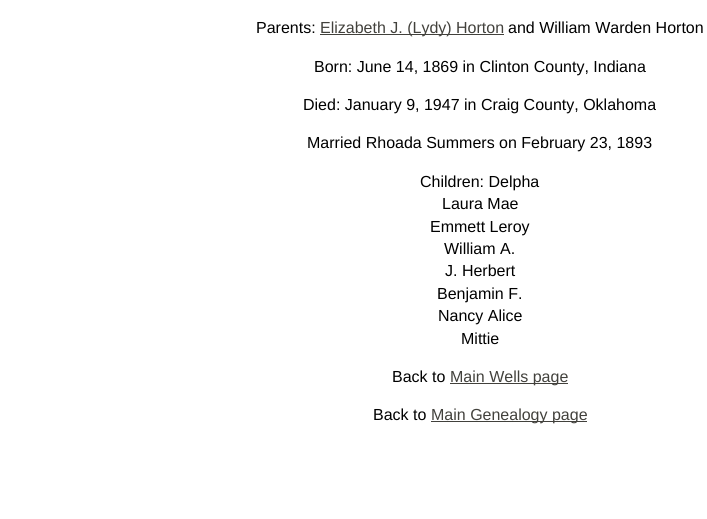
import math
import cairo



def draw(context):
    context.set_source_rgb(1, 1, 1)
    context.paint()
    context.set_source_rgb(66 / 255, 65 / 255, 60 / 255)
    context.rectangle(320, 34, 184, 1)
    context.fill()
    context.rectangle(450, 383, 118, 1)
    context.fill()
    context.rectangle(431, 421, 156, 1)
    context.fill()
    context.select_font_face("Liberation Sans")
    context.set_font_size(16)
    context.set_source_rgb(0, 0, 0)
    context.move_to(256, 33)
    context.show_text("Parents:")
    context.set_source_rgb(66 / 255, 65 / 255, 60 / 255)
    context.move_to(320, 33)
    context.show_text("Elizabeth J. (Lydy) Horton")
    context.set_source_rgb(0, 0, 0)
    context.move_to(508, 33)
    context.show_text("and William Warden Horton")
    context.move_to(314, 72)
    context.show_text("Born: June 14, 1869 in Clinton County, Indiana")
    context.move_to(303, 110)
    context.show_text("Died: January 9, 1947 in Craig County, Oklahoma")
    context.move_to(307, 148)
    context.show_text("Married Rhoada Summers on February 23, 1893")
    context.move_to(420, 187)
    context.show_text("Children: Delpha")
    context.move_to(442, 209)
    context.show_text("Laura Mae")
    context.move_to(430, 232)
    context.show_text("Emmett Leroy")
    context.move_to(444, 254)
    context.show_text("William A.")
    context.move_to(445, 276)
    context.show_text("J. Herbert")
    context.move_to(437, 299)
    context.show_text("Benjamin F.")
    context.move_to(438, 321)
    context.show_text("Nancy Alice")
    context.move_to(461, 344)
    context.show_text("Mittie")
    context.move_to(392, 382)
    context.show_text("Back to")
    context.set_source_rgb(66 / 255, 65 / 255, 60 / 255)
    context.move_to(450, 382)
    context.show_text("Main Wells page")
    context.set_source_rgb(0, 0, 0)
    context.move_to(373, 420)
    context.show_text("Back to")
    context.set_source_rgb(66 / 255, 65 / 255, 60 / 255)
    context.move_to(431, 420)
    context.show_text("Main Genealogy page")


surface = cairo.ImageSurface(cairo.Format.RGB24, 707, 519)
context = cairo.Context(surface)
options = cairo.FontOptions()
options.set_hint_metrics(cairo.HintMetrics.OFF)
options.set_hint_style(cairo.HintStyle.NONE)
context.set_font_options(options)
context.set_miter_limit(4)
draw(context)
surface.write_to_png("out.png")
